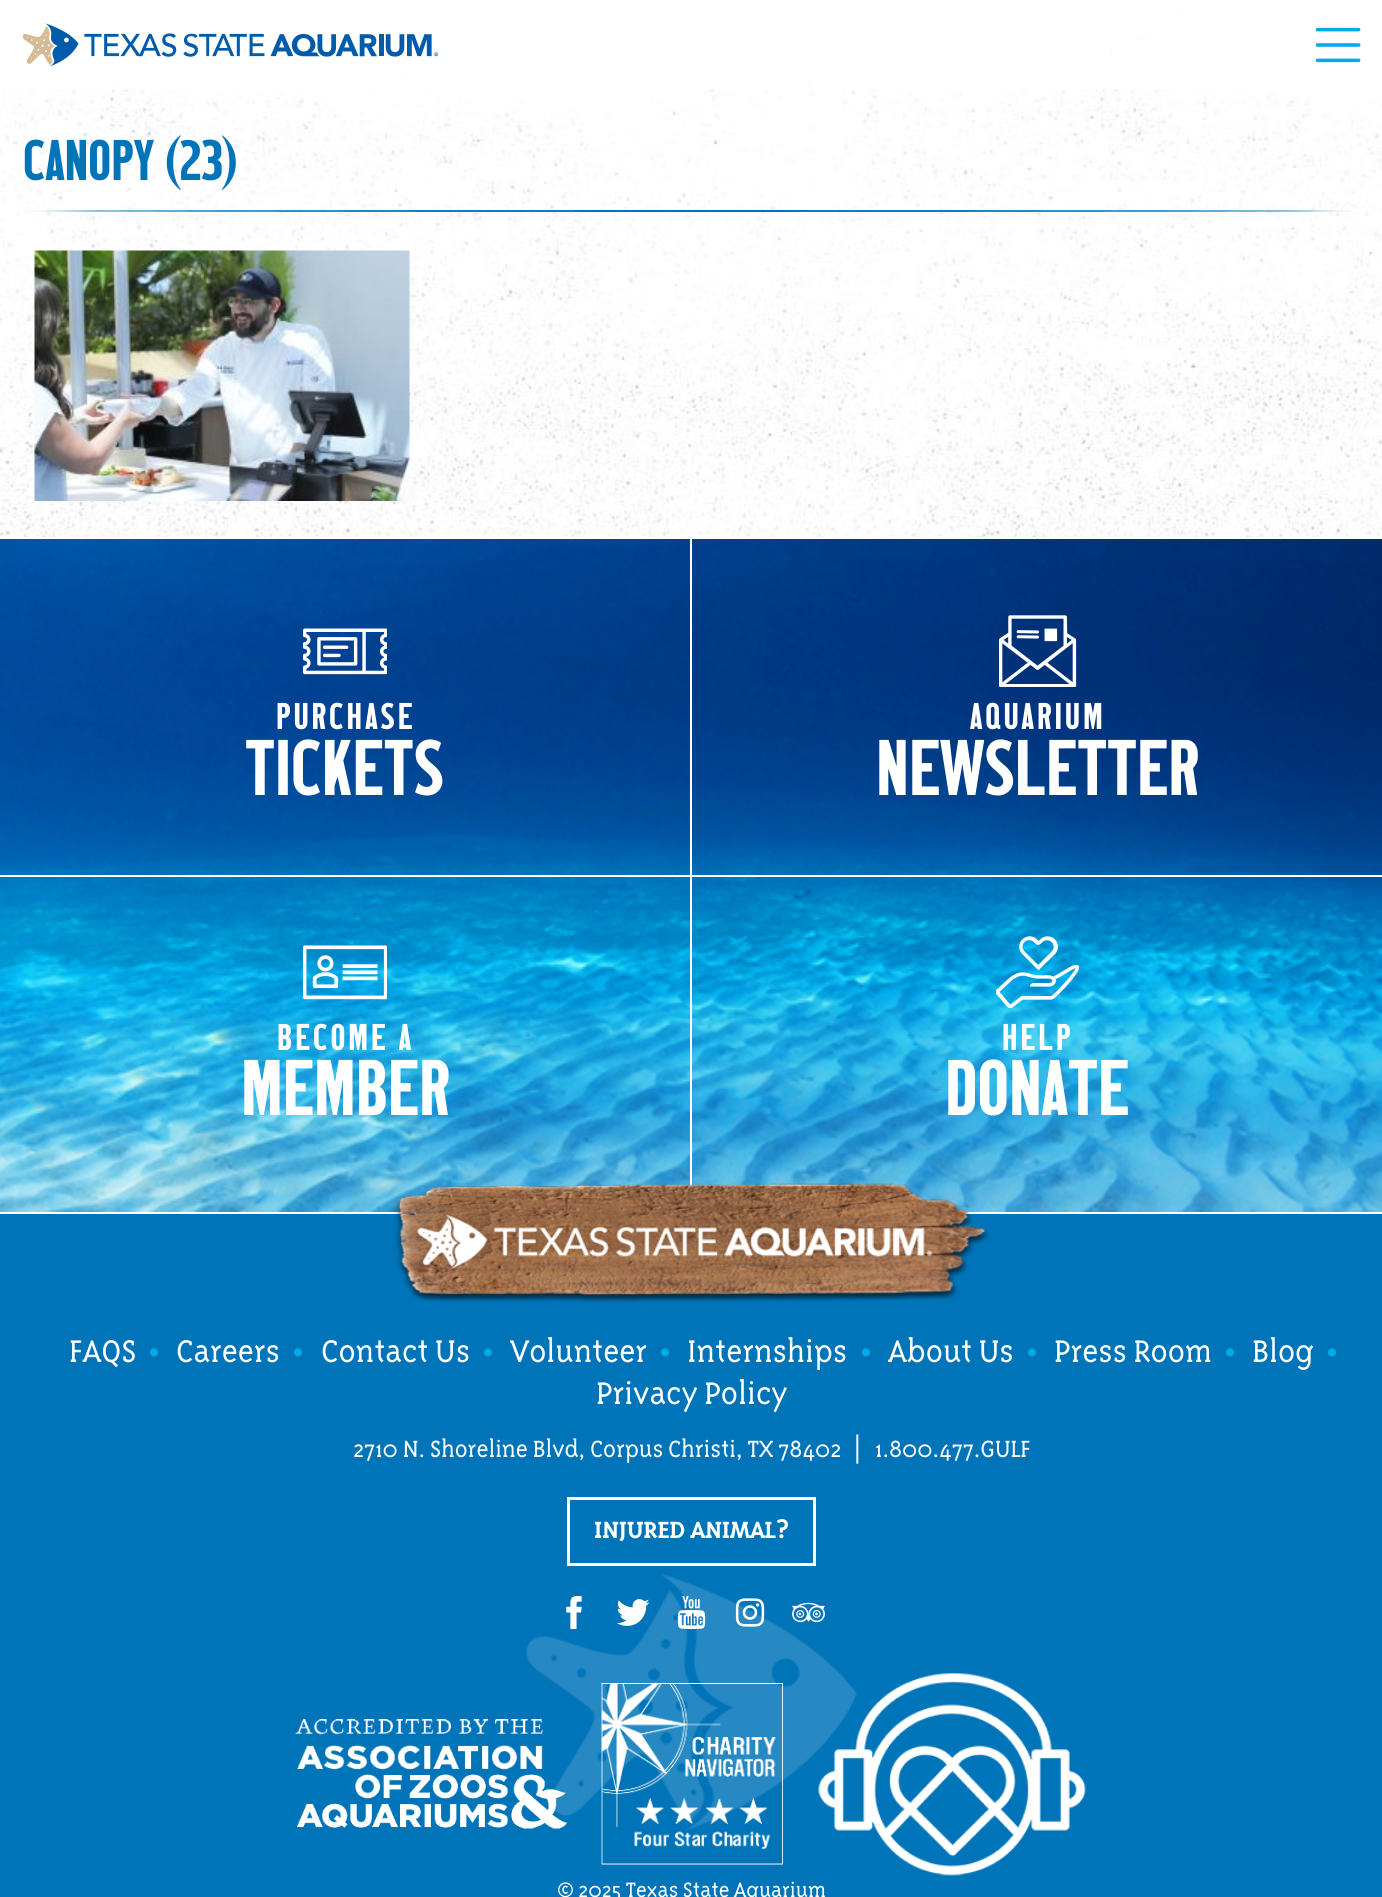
import math
import cairo



def draw_spaced(context, x, y, s, letter, word):
    context.move_to(x, y)
    for ch in s:
        context.show_text(ch)
        context.rel_move_to(letter + word * (ch == ' '), 0)


def draw_image(context, path, x, y, w, h):
    context.save()
    context.set_source_surface(cairo.ImageSurface.create_from_png(path), x, y)
    context.rectangle(x, y, w, h)
    context.fill()
    context.restore()


def draw(context):
    context.set_source_rgb(1, 1, 1)
    context.paint()
    draw_image(context, "images/1.png", 0, 0, 1382, 537)
    context.set_source_rgba(1, 1, 1, 0.9)
    context.rectangle(15, 0, 1367, 90)
    context.fill()
    draw_image(context, "images/2.png", 23, 23, 415, 44)
    draw_image(context, "images/3.png", 1316, 27, 45, 36)
    draw_image(context, "images/4.png", 34, 250, 376, 251)
    context.set_source_rgb(0, 116 / 255, 185 / 255)
    context.rectangle(0, 1214, 1382, 683)
    context.fill()
    draw_image(context, "images/5.png", 0, 539, 1382, 673)
    context.set_source_rgb(1, 1, 1)
    context.rectangle(690, 537, 2, 338)
    context.fill()
    draw_image(context, "images/6.png", 303, 628, 84, 47)
    draw_image(context, "images/7.png", 999, 615, 78, 72)
    context.rectangle(0, 875, 1382, 2)
    context.fill()
    context.rectangle(690, 875, 2, 312)
    context.fill()
    draw_image(context, "images/8.png", 303, 945, 84, 55)
    draw_image(context, "images/9.png", 996, 936, 83, 72)
    draw_image(context, "images/10.png", 526, 1573, 331, 258)
    draw_image(context, "images/11.png", 394, 1183, 596, 120)
    context.rectangle(568.5, 1498.5, 246, 66)
    context.set_line_width(3)
    context.stroke()
    draw_image(context, "images/12.png", 566, 1596, 16, 33)
    draw_image(context, "images/13.png", 617, 1599, 33, 27)
    draw_image(context, "images/14.png", 677, 1596, 29, 33)
    draw_image(context, "images/15.png", 735, 1598, 30, 29)
    draw_image(context, "images/16.png", 792, 1602, 33, 21)
    draw_image(context, "images/17.png", 295, 1719, 272, 110)
    draw_image(context, "images/18.png", 601, 1683, 182, 182)
    draw_image(context, "images/19.png", 818, 1673, 268, 203)
    context.select_font_face("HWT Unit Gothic")
    context.set_font_size(60)
    context.set_source_rgb(0, 116 / 255, 185 / 255)
    context.move_to(23, 180)
    context.show_text("CANOPY (23)")
    context.set_font_size(39)
    context.set_source_rgb(1, 1, 1)
    draw_spaced(context, 276, 729, "PURCHASE", 3, 0)
    context.set_font_size(82.5)
    context.move_to(245, 795)
    context.show_text("TICKETS")
    context.set_font_size(39)
    draw_spaced(context, 970, 729, "AQUARIUM", 3, 0)
    context.set_font_size(82.5)
    context.move_to(876, 795)
    context.show_text("NEWSLETTER")
    context.set_font_size(39)
    draw_spaced(context, 277, 1050, "BECOME A", 3, 0)
    context.set_font_size(82.5)
    context.move_to(241, 1115)
    context.show_text("MEMBER")
    context.set_font_size(39)
    draw_spaced(context, 1002, 1050, "HELP", 3, 0)
    context.set_font_size(82.5)
    context.move_to(945, 1115)
    context.show_text("DONATE")
    context.select_font_face("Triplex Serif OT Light")
    context.set_font_size(36)
    context.move_to(69, 1362)
    context.show_text("FAQS")
    context.set_font_size(40)
    context.set_source_rgb(0, 171 / 255, 233 / 255)
    context.move_to(148, 1365)
    context.show_text("•")
    context.set_font_size(36)
    context.set_source_rgb(1, 1, 1)
    context.move_to(176, 1362)
    context.show_text("Careers")
    context.set_font_size(40)
    context.set_source_rgb(0, 171 / 255, 233 / 255)
    context.move_to(292, 1365)
    context.show_text("•")
    context.set_font_size(36)
    context.set_source_rgb(1, 1, 1)
    context.move_to(321, 1362)
    context.show_text("Contact Us")
    context.set_font_size(40)
    context.set_source_rgb(0, 171 / 255, 233 / 255)
    context.move_to(482, 1365)
    context.show_text("•")
    context.set_font_size(36)
    context.set_source_rgb(1, 1, 1)
    context.move_to(510, 1362)
    context.show_text("Volunteer")
    context.set_font_size(40)
    context.set_source_rgb(0, 171 / 255, 233 / 255)
    context.move_to(659, 1365)
    context.show_text("•")
    context.set_font_size(36)
    context.set_source_rgb(1, 1, 1)
    context.move_to(687, 1362)
    context.show_text("Internships")
    context.set_font_size(40)
    context.set_source_rgb(0, 171 / 255, 233 / 255)
    context.move_to(860, 1365)
    context.show_text("•")
    context.set_font_size(36)
    context.set_source_rgb(1, 1, 1)
    context.move_to(888, 1362)
    context.show_text("About Us")
    context.set_font_size(40)
    context.set_source_rgb(0, 171 / 255, 233 / 255)
    context.move_to(1026, 1365)
    context.show_text("•")
    context.set_font_size(36)
    context.set_source_rgb(1, 1, 1)
    context.move_to(1054, 1362)
    context.show_text("Press Room")
    context.set_font_size(40)
    context.set_source_rgb(0, 171 / 255, 233 / 255)
    context.move_to(1224, 1365)
    context.show_text("•")
    context.set_font_size(36)
    context.set_source_rgb(1, 1, 1)
    context.move_to(1252, 1362)
    context.show_text("Blog")
    context.set_font_size(40)
    context.set_source_rgb(0, 171 / 255, 233 / 255)
    context.move_to(1326, 1365)
    context.show_text("•")
    context.set_font_size(36)
    context.set_source_rgb(1, 1, 1)
    context.move_to(596, 1404)
    context.show_text("Privacy Policy")
    context.set_font_size(27)
    context.move_to(353, 1457)
    context.show_text("2710 N. Shoreline Blvd, Corpus Christi, TX 78402")
    context.set_font_size(30)
    context.move_to(853, 1457)
    context.show_text("|")
    context.set_font_size(27)
    context.move_to(875, 1457)
    context.show_text("1.800.477.GULF")
    context.select_font_face("Triplex Serif OT", cairo.FontSlant.NORMAL, cairo.FontWeight.BOLD)
    context.move_to(594, 1538)
    context.show_text("INJURED ANIMAL?")
    context.select_font_face("Triplex Serif OT Light")
    context.set_font_size(24)
    context.move_to(557, 1897)
    context.show_text("© 2025 Texas State Aquarium")


surface = cairo.ImageSurface(cairo.Format.RGB24, 1382, 1897)
context = cairo.Context(surface)
options = cairo.FontOptions()
options.set_hint_metrics(cairo.HintMetrics.OFF)
options.set_hint_style(cairo.HintStyle.NONE)
context.set_font_options(options)
context.set_miter_limit(4)
draw(context)
surface.write_to_png("out.png")
